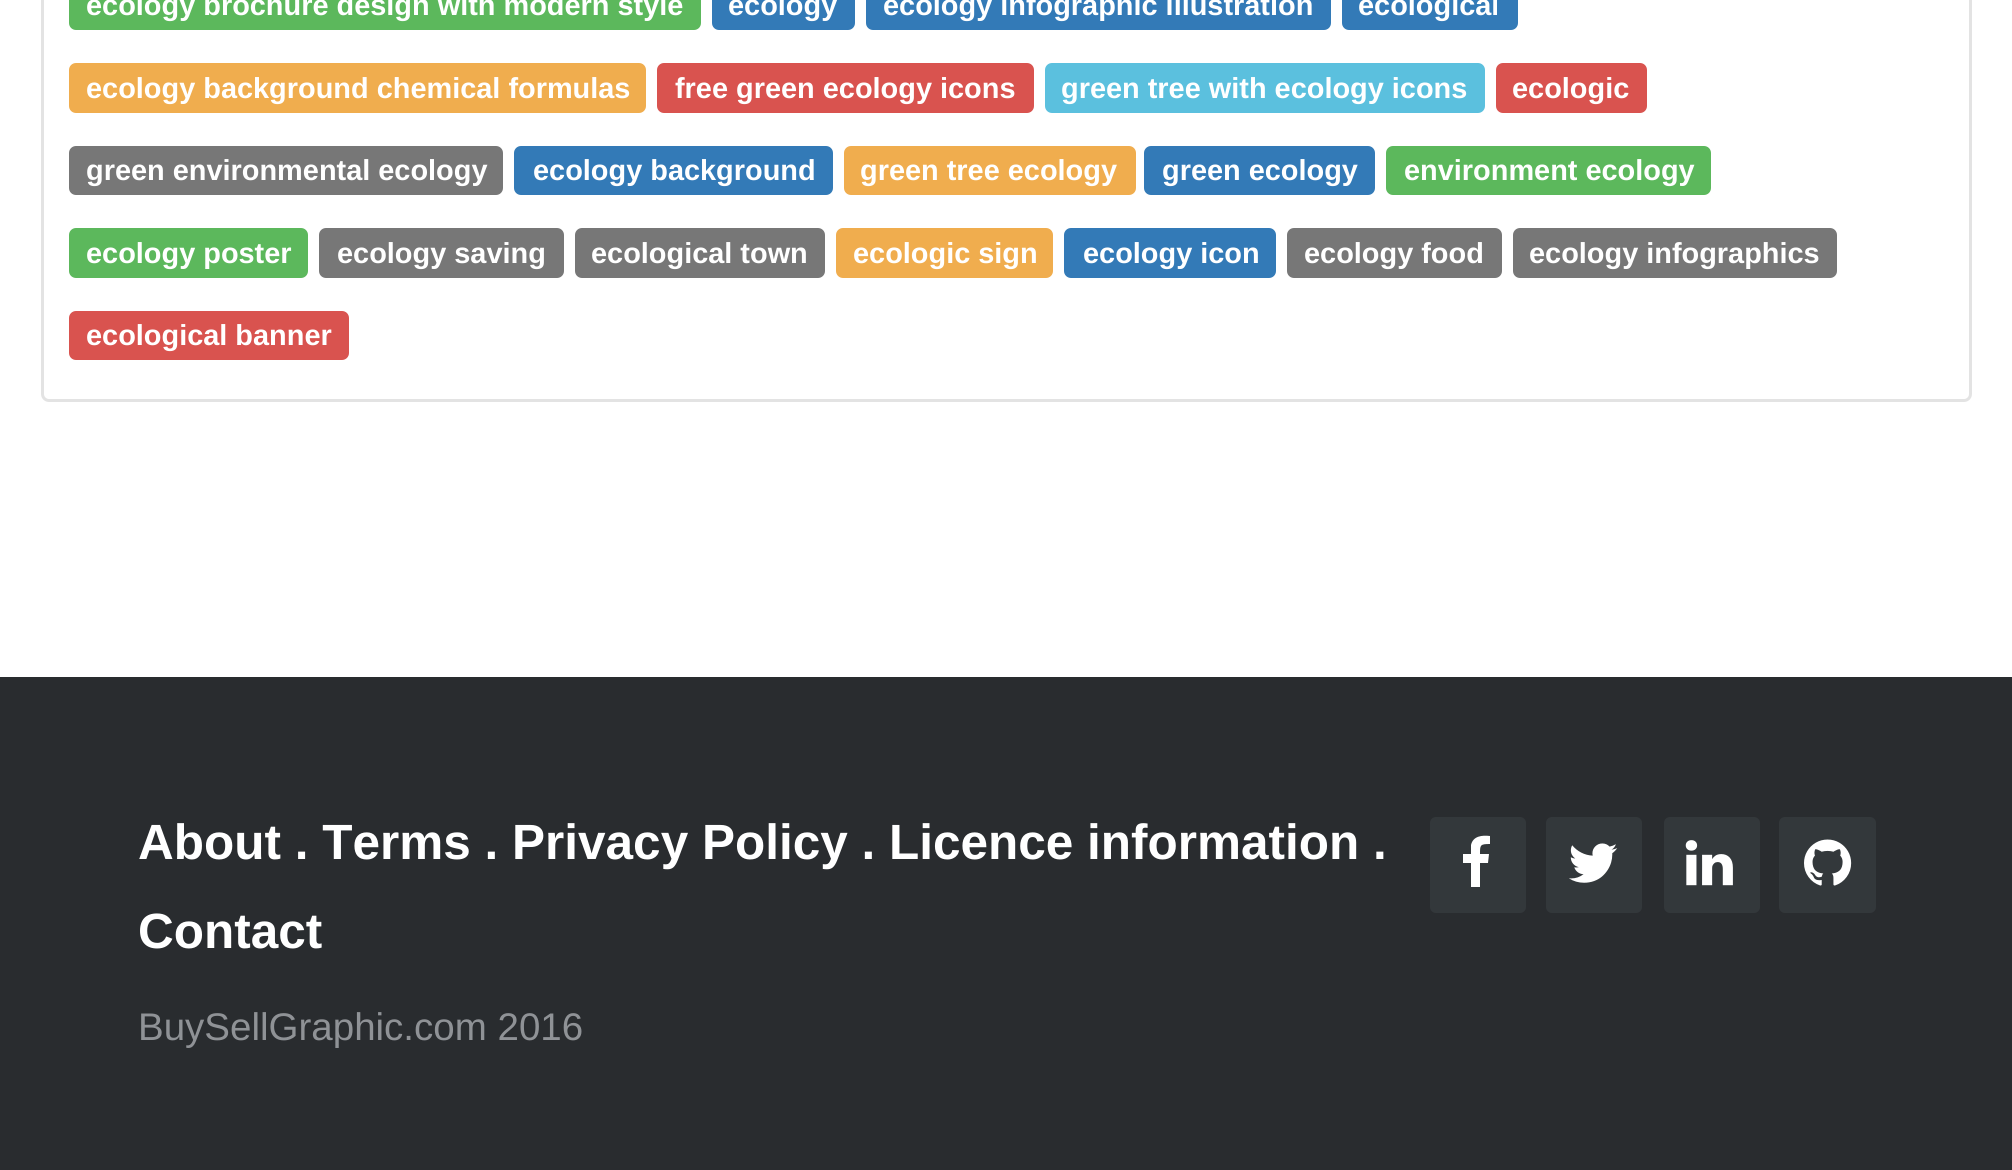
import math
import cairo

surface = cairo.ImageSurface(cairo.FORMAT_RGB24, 2012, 1170)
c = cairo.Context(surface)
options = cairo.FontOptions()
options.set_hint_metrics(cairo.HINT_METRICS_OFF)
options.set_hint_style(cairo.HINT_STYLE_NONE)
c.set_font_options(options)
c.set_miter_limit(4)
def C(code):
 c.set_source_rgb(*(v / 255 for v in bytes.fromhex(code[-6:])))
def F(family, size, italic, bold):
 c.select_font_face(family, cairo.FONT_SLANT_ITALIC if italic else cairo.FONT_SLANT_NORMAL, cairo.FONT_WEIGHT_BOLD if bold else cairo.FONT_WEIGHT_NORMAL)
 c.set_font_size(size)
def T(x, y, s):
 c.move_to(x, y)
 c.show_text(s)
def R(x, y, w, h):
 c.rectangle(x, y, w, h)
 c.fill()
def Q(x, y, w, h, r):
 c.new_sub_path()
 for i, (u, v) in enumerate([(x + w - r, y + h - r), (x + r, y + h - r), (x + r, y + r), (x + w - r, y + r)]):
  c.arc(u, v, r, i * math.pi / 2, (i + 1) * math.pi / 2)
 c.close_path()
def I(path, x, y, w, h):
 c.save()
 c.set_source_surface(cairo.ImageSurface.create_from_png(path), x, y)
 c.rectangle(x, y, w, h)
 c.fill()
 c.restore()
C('ffffff')
c.paint()
Q(42.5,-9.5,1928,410,6.5)
C('e3e3e3')
c.set_line_width(3)
c.stroke()
C('5cb85c')
Q(69,-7,632,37,7)
c.fill()
F('Liberation Sans',28.9,0,1)
C('ffffff')
T(86,15,'ecology brochure design with modern style')
C('337ab7')
Q(712,-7,143,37,7)
c.fill()
C('ffffff')
T(728,15,'ecology')
C('337ab7')
Q(866,-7,465,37,7)
c.fill()
C('ffffff')
T(883,15,'ecology infographic illustration')
C('337ab7')
Q(1342,-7,176,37,7)
c.fill()
C('ffffff')
T(1358,15,'ecological')
C('f0ad4e')
Q(69,63,577,50,7)
c.fill()
C('ffffff')
T(86,98,'ecology background chemical formulas')
C('d9534f')
Q(657,63,377,50,7)
c.fill()
C('ffffff')
T(675,98,'free green ecology icons')
C('5bc0de')
Q(1045,63,440,50,7)
c.fill()
C('ffffff')
T(1061,98,'green tree with ecology icons')
C('d9534f')
Q(1496,63,151,50,7)
c.fill()
C('ffffff')
T(1512,98,'ecologic')
C('777777')
Q(69,146,434,49,7)
c.fill()
C('ffffff')
T(86,180,'green environmental ecology')
C('337ab7')
Q(514,146,319,49,7)
c.fill()
C('ffffff')
T(533,180,'ecology background')
C('f0ad4e')
Q(844,146,292,49,7)
c.fill()
C('ffffff')
T(860,180,'green tree ecology')
C('337ab7')
Q(1144,146,231,49,7)
c.fill()
C('ffffff')
T(1162,180,'green ecology')
C('5cb85c')
Q(1386,146,325,49,7)
c.fill()
C('ffffff')
T(1404,180,'environment ecology')
C('5cb85c')
Q(69,228,239,50,7)
c.fill()
C('ffffff')
T(86,263,'ecology poster')
C('777777')
Q(319,228,245,50,7)
c.fill()
C('ffffff')
T(337,263,'ecology saving')
C('777777')
Q(575,228,250,50,7)
c.fill()
C('ffffff')
T(591,263,'ecological town')
C('f0ad4e')
Q(836,228,217,50,7)
c.fill()
C('ffffff')
T(853,263,'ecologic sign')
C('337ab7')
Q(1064,228,212,50,7)
c.fill()
C('ffffff')
T(1083,263,'ecology icon')
C('777777')
Q(1287,228,215,50,7)
c.fill()
C('ffffff')
T(1304,263,'ecology food')
C('777777')
Q(1513,228,324,50,7)
c.fill()
C('ffffff')
T(1529,263,'ecology infographics')
C('d9534f')
Q(69,311,280,49,7)
c.fill()
C('ffffff')
T(86,345,'ecological banner')
C('292c2f')
R(0,677,2012,493)
F('Liberation Sans',49.5,0,1)
C('ffffff')
T(138,859,'About . Terms . Privacy Policy . Licence information .')
T(138,948,'Contact')
F('Liberation Sans',38.5,0,0)
C('8f9296')
T(138,1040,'BuySellGraphic.com 2016')
C('33383b')
Q(1430,817,96,96,6)
c.fill()
C('ffffff')
c.new_path()
c.move_to(1490,836)
c.line_to(1490,844)
c.curve_to(1480,844,1480,845,1480,854)
c.line_to(1489,854)
c.line_to(1488,863)
c.line_to(1480,863)
c.line_to(1480,887)
c.line_to(1471,887)
c.line_to(1471,863)
c.line_to(1463,863)
c.line_to(1463,854)
c.line_to(1471,854)
c.line_to(1471,845)
c.curve_to(1473,836,1482,835,1490,836)
c.close_path()
c.fill()
C('33383b')
Q(1546,817,96,96,6)
c.fill()
I('1.png',1569,843,49,40)
Q(1664,817,96,96,6)
c.fill()
I('2.png',1685,840,48,46)
Q(1779,817,97,96,6)
c.fill()
I('3.png',1804,839,48,47)
surface.write_to_png('o.png')
